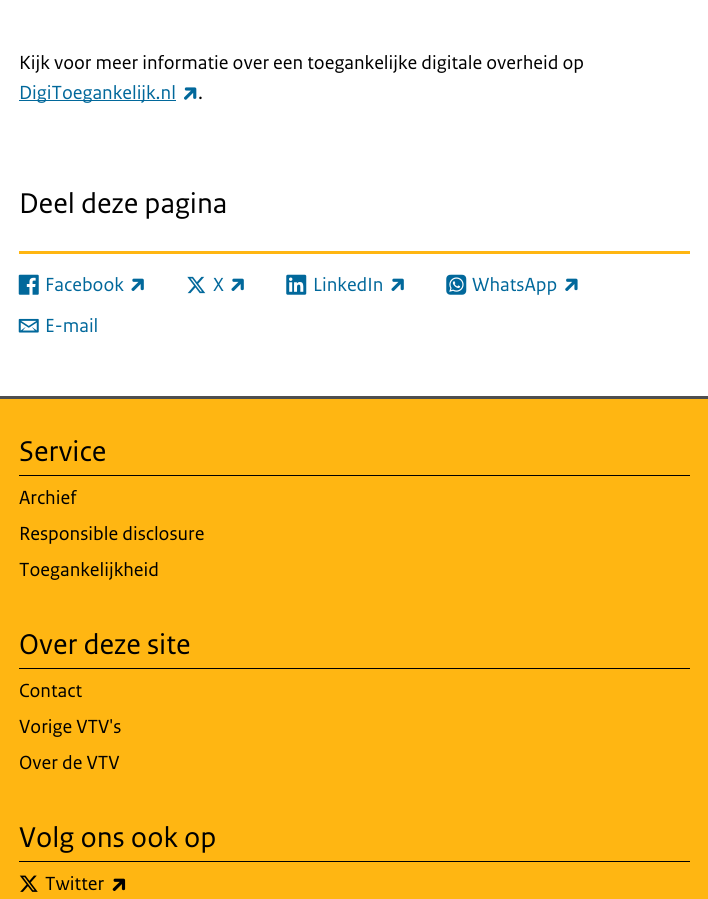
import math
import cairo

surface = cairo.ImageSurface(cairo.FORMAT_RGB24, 708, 899)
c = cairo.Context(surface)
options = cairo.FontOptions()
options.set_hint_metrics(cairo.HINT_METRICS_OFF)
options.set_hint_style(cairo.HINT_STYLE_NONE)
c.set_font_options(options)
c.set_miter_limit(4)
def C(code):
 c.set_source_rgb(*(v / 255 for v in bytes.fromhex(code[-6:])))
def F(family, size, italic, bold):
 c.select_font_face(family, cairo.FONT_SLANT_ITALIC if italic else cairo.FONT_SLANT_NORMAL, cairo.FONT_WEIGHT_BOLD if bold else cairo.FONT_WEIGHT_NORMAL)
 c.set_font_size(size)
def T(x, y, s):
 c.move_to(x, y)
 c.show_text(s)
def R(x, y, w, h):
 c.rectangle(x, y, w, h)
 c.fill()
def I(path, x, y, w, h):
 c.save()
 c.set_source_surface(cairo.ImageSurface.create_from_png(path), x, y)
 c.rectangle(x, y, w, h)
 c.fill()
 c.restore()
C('ffffff')
c.paint()
F('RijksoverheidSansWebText',20,0,0)
C('000000')
T(19,69,'Kijk voor meer informatie over een toegankelijke digitale overheid op')
C('01689b')
R(19,100,157,1)
T(19,99,'DigiToegankelijk.nl')
I('1.png',184,87,13,13)
C('000000')
T(198,99,'.')
F('RijksoverheidSansWebText',30,0,0)
T(19,213,'Deel deze pagina')
C('ffb612')
R(19,251,671,3)
I('2.png',18,274,21,21)
F('RijksoverheidSansWebText',20,0,0)
C('01689b')
T(45,291,'Facebook')
I('3.png',131,278,13,13)
I('4.png',187,276,19,18)
T(213,291,'X')
I('3.png',231,278,13,13)
I('5.png',286,274,21,21)
T(313,291,'LinkedIn')
I('3.png',391,278,13,13)
I('6.png',446,274,21,21)
T(472,291,'WhatsApp')
I('7.png',565,278,13,13)
I('8.png',18,318,21,15)
T(45,332,'E-mail')
C('ffb612')
R(0,399,708,500)
C('4e4e4e')
R(0,396,708,3)
C('000000')
R(19,475,671,1)
F('RijksoverheidSansWebText',30,0,0)
T(19,461,'Service')
F('RijksoverheidSansWebText',20,0,0)
T(19,504,'Archief')
T(19,540,'Responsible disclosure')
T(19,576,'Toegankelijkheid')
R(19,668,671,1)
F('RijksoverheidSansWebText',30,0,0)
T(19,654,'Over deze site')
F('RijksoverheidSansWebText',20,0,0)
T(19,697,'Contact')
T(19,733,'Vorige VTV\'s')
T(19,769,'Over de VTV')
R(19,861,671,1)
F('RijksoverheidSansWebText',30,0,0)
T(19,847,'Volg ons ook op')
I('9.png',19,875,19,17)
F('RijksoverheidSansWebText',20,0,0)
T(45,890,'Twitter')
I('10.png',112,878,14,13)
surface.write_to_png('o.png')
